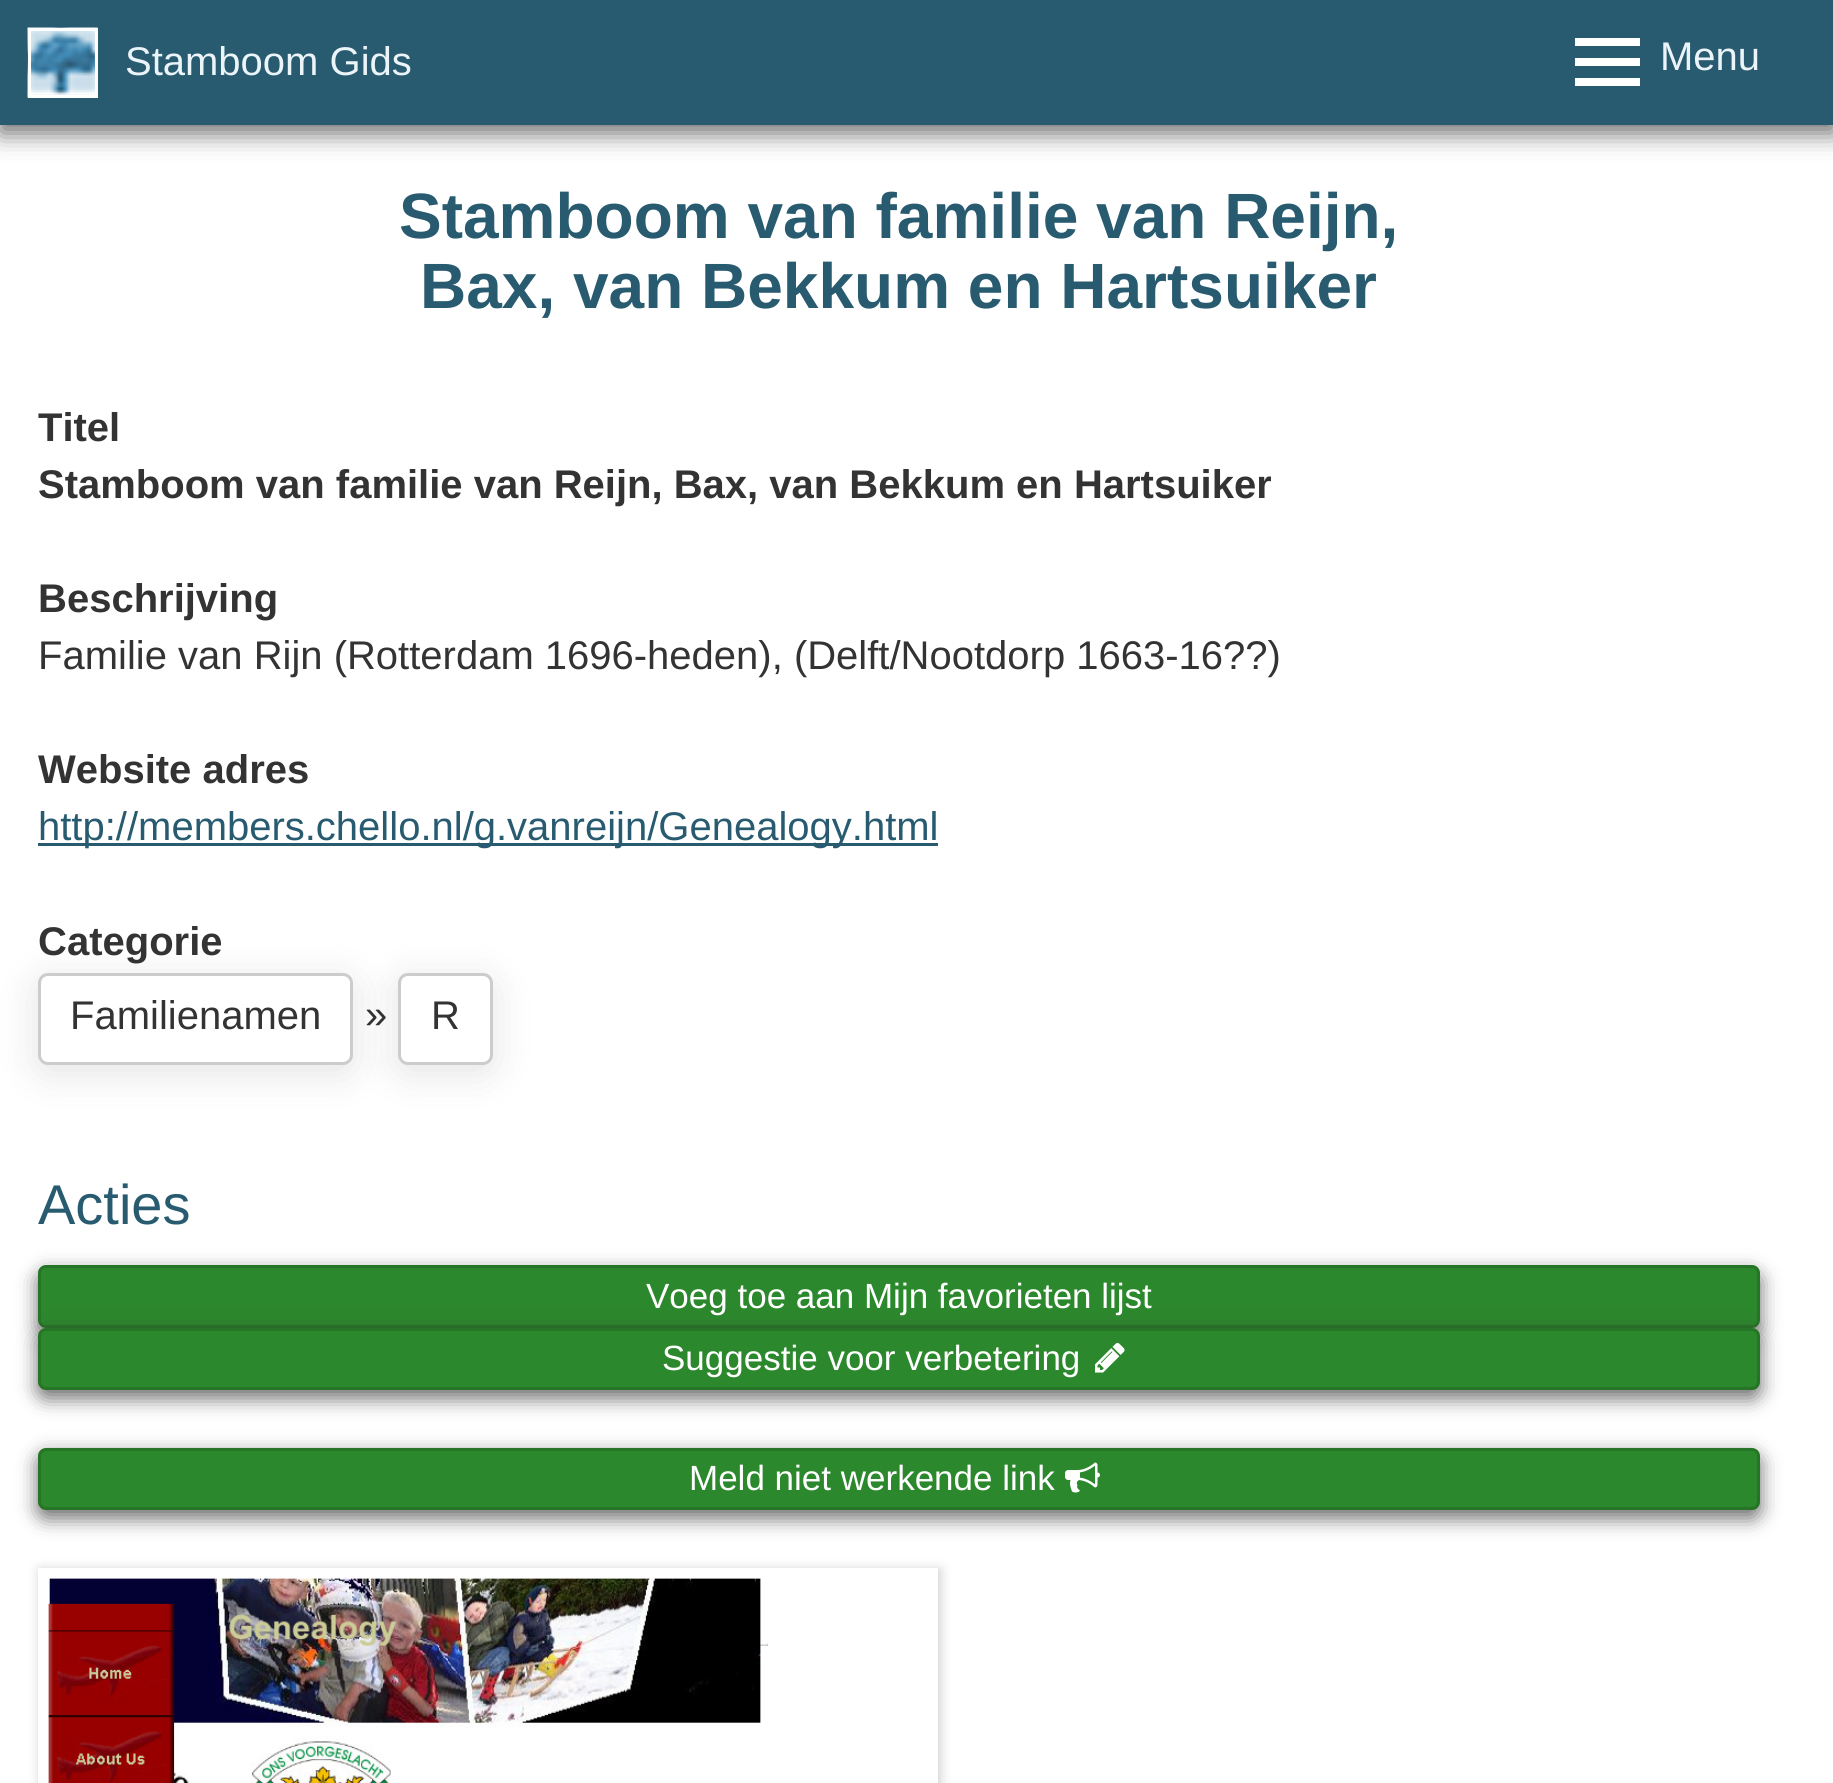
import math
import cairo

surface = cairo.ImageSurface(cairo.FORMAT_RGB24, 1833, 1783)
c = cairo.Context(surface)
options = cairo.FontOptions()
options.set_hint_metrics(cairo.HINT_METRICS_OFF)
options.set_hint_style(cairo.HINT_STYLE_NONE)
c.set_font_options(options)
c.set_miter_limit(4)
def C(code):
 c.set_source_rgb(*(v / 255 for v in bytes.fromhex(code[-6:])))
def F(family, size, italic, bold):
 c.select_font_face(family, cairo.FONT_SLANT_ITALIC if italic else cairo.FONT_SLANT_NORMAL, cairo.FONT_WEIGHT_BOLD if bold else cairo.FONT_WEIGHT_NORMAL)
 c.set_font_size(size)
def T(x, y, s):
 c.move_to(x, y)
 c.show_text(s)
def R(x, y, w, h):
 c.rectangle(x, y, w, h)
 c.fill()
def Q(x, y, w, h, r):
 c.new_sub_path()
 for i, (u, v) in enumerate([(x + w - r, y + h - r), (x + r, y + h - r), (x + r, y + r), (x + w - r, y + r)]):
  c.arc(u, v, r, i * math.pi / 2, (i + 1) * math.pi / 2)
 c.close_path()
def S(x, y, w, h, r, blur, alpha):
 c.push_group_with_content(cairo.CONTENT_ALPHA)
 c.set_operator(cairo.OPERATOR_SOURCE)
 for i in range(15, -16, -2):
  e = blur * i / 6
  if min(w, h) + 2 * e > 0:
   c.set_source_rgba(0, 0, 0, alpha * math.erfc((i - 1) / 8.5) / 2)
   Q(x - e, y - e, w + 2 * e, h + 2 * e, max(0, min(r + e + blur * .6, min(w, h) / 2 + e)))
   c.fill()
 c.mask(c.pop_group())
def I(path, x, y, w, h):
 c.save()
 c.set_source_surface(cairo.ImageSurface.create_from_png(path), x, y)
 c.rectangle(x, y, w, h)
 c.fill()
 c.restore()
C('ffffff')
c.paint()
C('323232')
S(0,8,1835,125,0,12.5,.73)
C('285b70')
R(0,0,1833,125)
I('1.png',27,27,71,71)
c.rectangle(29.5,29.5,67,67)
C('ffffff')
c.set_line_width(3)
c.stroke()
F('Liberation Sans',40,0,0)
C('ebf4f8')
T(125,75,'Stamboom Gids')
C('ffffff')
R(1575,78,65,8)
R(1575,38,65,8)
R(1575,58,65,8)
C('ebf4f8')
T(1660,70,'Menu')
F('Liberation Sans',64,0,1)
C('285b70')
T(399,238,'Stamboom van familie van Reijn,')
T(420,308,'Bax, van Bekkum en Hartsuiker')
F('Liberation Sans',40,0,1)
C('333333')
T(38,441,'Titel')
T(38,498,'Stamboom van familie van Reijn, Bax, van Bekkum en Hartsuiker')
T(38,612,'Beschrijving')
F('Liberation Sans',40,0,0)
T(38,669,'Familie van Rijn (Rotterdam 1696-heden), (Delft/Nootdorp 1663-16??)')
F('Liberation Sans',40,0,1)
T(38,783,'Website adres')
C('285b70')
R(38,843,900,3)
F('Liberation Sans',40,0,0)
T(38,840,'http://members.chello.nl/g.vanreijn/Genealogy.html')
F('Liberation Sans',40,0,1)
C('333333')
T(38,955,'Categorie')
C('000000')
S(35,978,320,97,13,19,.1)
C('ffffff')
Q(39.5,974.5,312,89,8.5)
c.fill_preserve()
C('cccccc')
c.stroke()
F('Liberation Sans',40,0,0)
C('333333')
T(70,1029,'Familienamen')
T(365,1028,'»')
C('000000')
S(395,978,100,97,13,19,.1)
C('ffffff')
Q(399.5,974.5,92,89,8.5)
c.fill_preserve()
C('cccccc')
c.stroke()
C('333333')
T(431,1029,'R')
F('Liberation Sans',56,0,0)
C('285b70')
T(38,1224,'Acties')
C('323232')
S(38,1273,1722,62,8,10,.73)
C('2c882c')
Q(39.5,1266.5,1719,60,6.5)
c.fill_preserve()
C('267526')
c.stroke()
F('Liberation Sans',35,0,0)
C('ffffff')
T(646,1308,'Voeg toe aan Mijn favorieten lijst')
C('323232')
S(38,1335,1722,63,8,10,.73)
C('2c882c')
Q(39.5,1329.5,1719,59,6.5)
c.fill_preserve()
C('267526')
c.stroke()
C('ffffff')
T(662,1370,'Suggestie voor verbetering')
I('2.png',1095,1342,30,31)
C('323232')
S(38,1455,1722,63,8,10,.73)
C('2c882c')
Q(39.5,1449.5,1719,59,6.5)
c.fill_preserve()
C('267526')
c.stroke()
C('ffffff')
T(689,1490,'Meld niet werkende link')
I('3.png',1065,1462,35,31)
C('cccccc')
S(40,1570,900,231,0,6,1)
C('ffffff')
R(38,1568,900,215)
I('4.png',47,1577,722,206)
surface.write_to_png('o.png')
